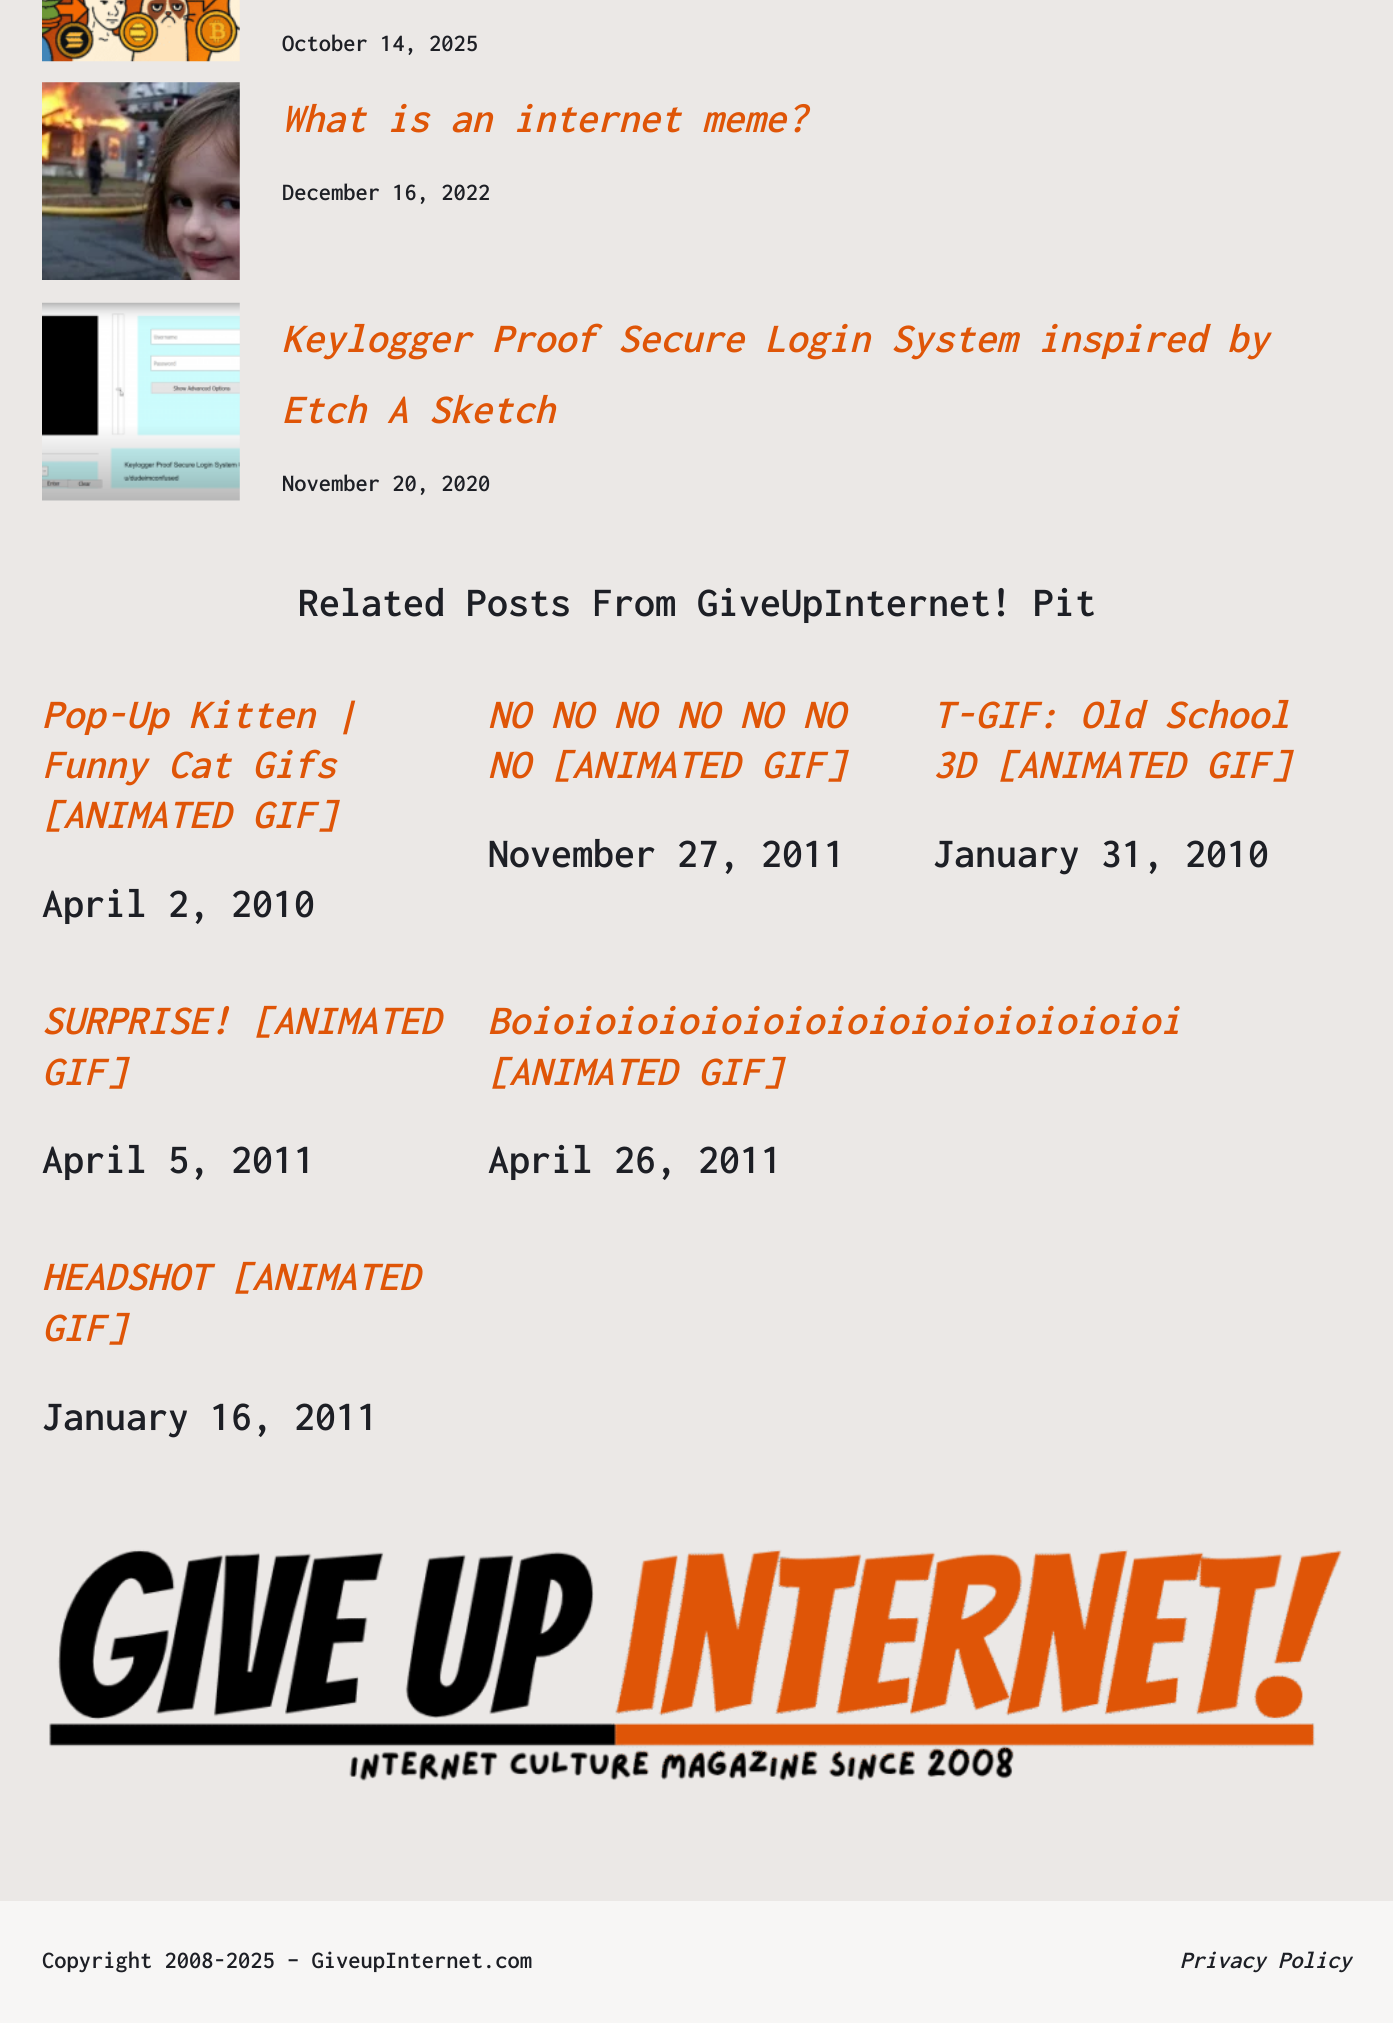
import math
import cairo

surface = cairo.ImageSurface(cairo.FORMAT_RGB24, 1393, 2023)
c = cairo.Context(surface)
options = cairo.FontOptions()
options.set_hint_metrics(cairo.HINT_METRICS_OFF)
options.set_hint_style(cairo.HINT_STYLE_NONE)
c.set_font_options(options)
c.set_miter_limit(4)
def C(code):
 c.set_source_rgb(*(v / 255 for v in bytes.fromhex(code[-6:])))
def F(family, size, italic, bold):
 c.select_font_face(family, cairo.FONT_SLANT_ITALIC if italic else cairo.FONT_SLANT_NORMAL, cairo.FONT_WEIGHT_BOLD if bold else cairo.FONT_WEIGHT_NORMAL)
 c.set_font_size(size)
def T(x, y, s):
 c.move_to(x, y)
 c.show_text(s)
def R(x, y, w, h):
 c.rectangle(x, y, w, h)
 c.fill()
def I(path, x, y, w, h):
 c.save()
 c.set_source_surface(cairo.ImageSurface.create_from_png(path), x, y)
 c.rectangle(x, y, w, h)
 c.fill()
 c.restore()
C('ebe8e6')
c.paint()
I('1.png',42,0,198,62)
F('Inconsolata SemiBold',24.5,0,0)
C('1d1f25')
T(282,51,'October 14, 2025')
I('2.png',42,82,198,198)
F('Inconsolata SemiBold',42,1,0)
C('df5507')
T(282,132,'What is an internet meme?')
F('Inconsolata SemiBold',24.5,0,0)
C('1d1f25')
T(282,200,'December 16, 2022')
I('3.png',42,302,198,199)
F('Inconsolata SemiBold',42,1,0)
C('df5507')
T(282,352,'Keylogger Proof Secure Login System inspired by')
T(282,423,'Etch A Sketch')
F('Inconsolata SemiBold',24.5,0,0)
C('1d1f25')
T(282,491,'November 20, 2020')
F('Inconsolata SemiBold',42,0,0)
T(298,616,'Related Posts From GiveUpInternet! Pit')
F('Inconsolata SemiBold',42,1,0)
C('df5507')
T(42,728,'Pop-Up Kitten |')
T(42,778,'Funny Cat Gifs')
T(42,828,'[ANIMATED GIF]')
F('Inconsolata SemiBold',42,0,0)
C('1d1f25')
T(42,917,'April 2, 2010')
F('Inconsolata SemiBold',42,1,0)
C('df5507')
T(488,728,'NO NO NO NO NO NO')
T(488,778,'NO [ANIMATED GIF]')
F('Inconsolata SemiBold',42,0,0)
C('1d1f25')
T(488,867,'November 27, 2011')
F('Inconsolata SemiBold',42,1,0)
C('df5507')
T(933,728,'T-GIF: Old School')
T(933,778,'3D [ANIMATED GIF]')
F('Inconsolata SemiBold',42,0,0)
C('1d1f25')
T(933,867,'January 31, 2010')
F('Inconsolata SemiBold',42,1,0)
C('df5507')
T(42,1034,'SURPRISE! [ANIMATED')
T(42,1085,'GIF]')
F('Inconsolata SemiBold',42,0,0)
C('1d1f25')
T(42,1173,'April 5, 2011')
F('Inconsolata SemiBold',42,1,0)
C('df5507')
T(488,1034,'Boioioioioioioioioioioioioioioioi')
T(488,1085,'[ANIMATED GIF]')
F('Inconsolata SemiBold',42,0,0)
C('1d1f25')
T(488,1173,'April 26, 2011')
F('Inconsolata SemiBold',42,1,0)
C('df5507')
T(42,1290,'HEADSHOT [ANIMATED')
T(42,1341,'GIF]')
F('Inconsolata SemiBold',42,0,0)
C('1d1f25')
T(42,1430,'January 16, 2011')
I('4.png',49,1549,1293,232)
C('f7f6f5')
R(0,1901,1393,122)
F('Inconsolata SemiBold',24.5,0,0)
C('1d1f25')
T(42,1968,'Copyright 2008-2025 – GiveupInternet.com')
F('Inconsolata SemiBold',24.5,1,0)
T(1180,1968,'Privacy Policy')
surface.write_to_png('o.png')
